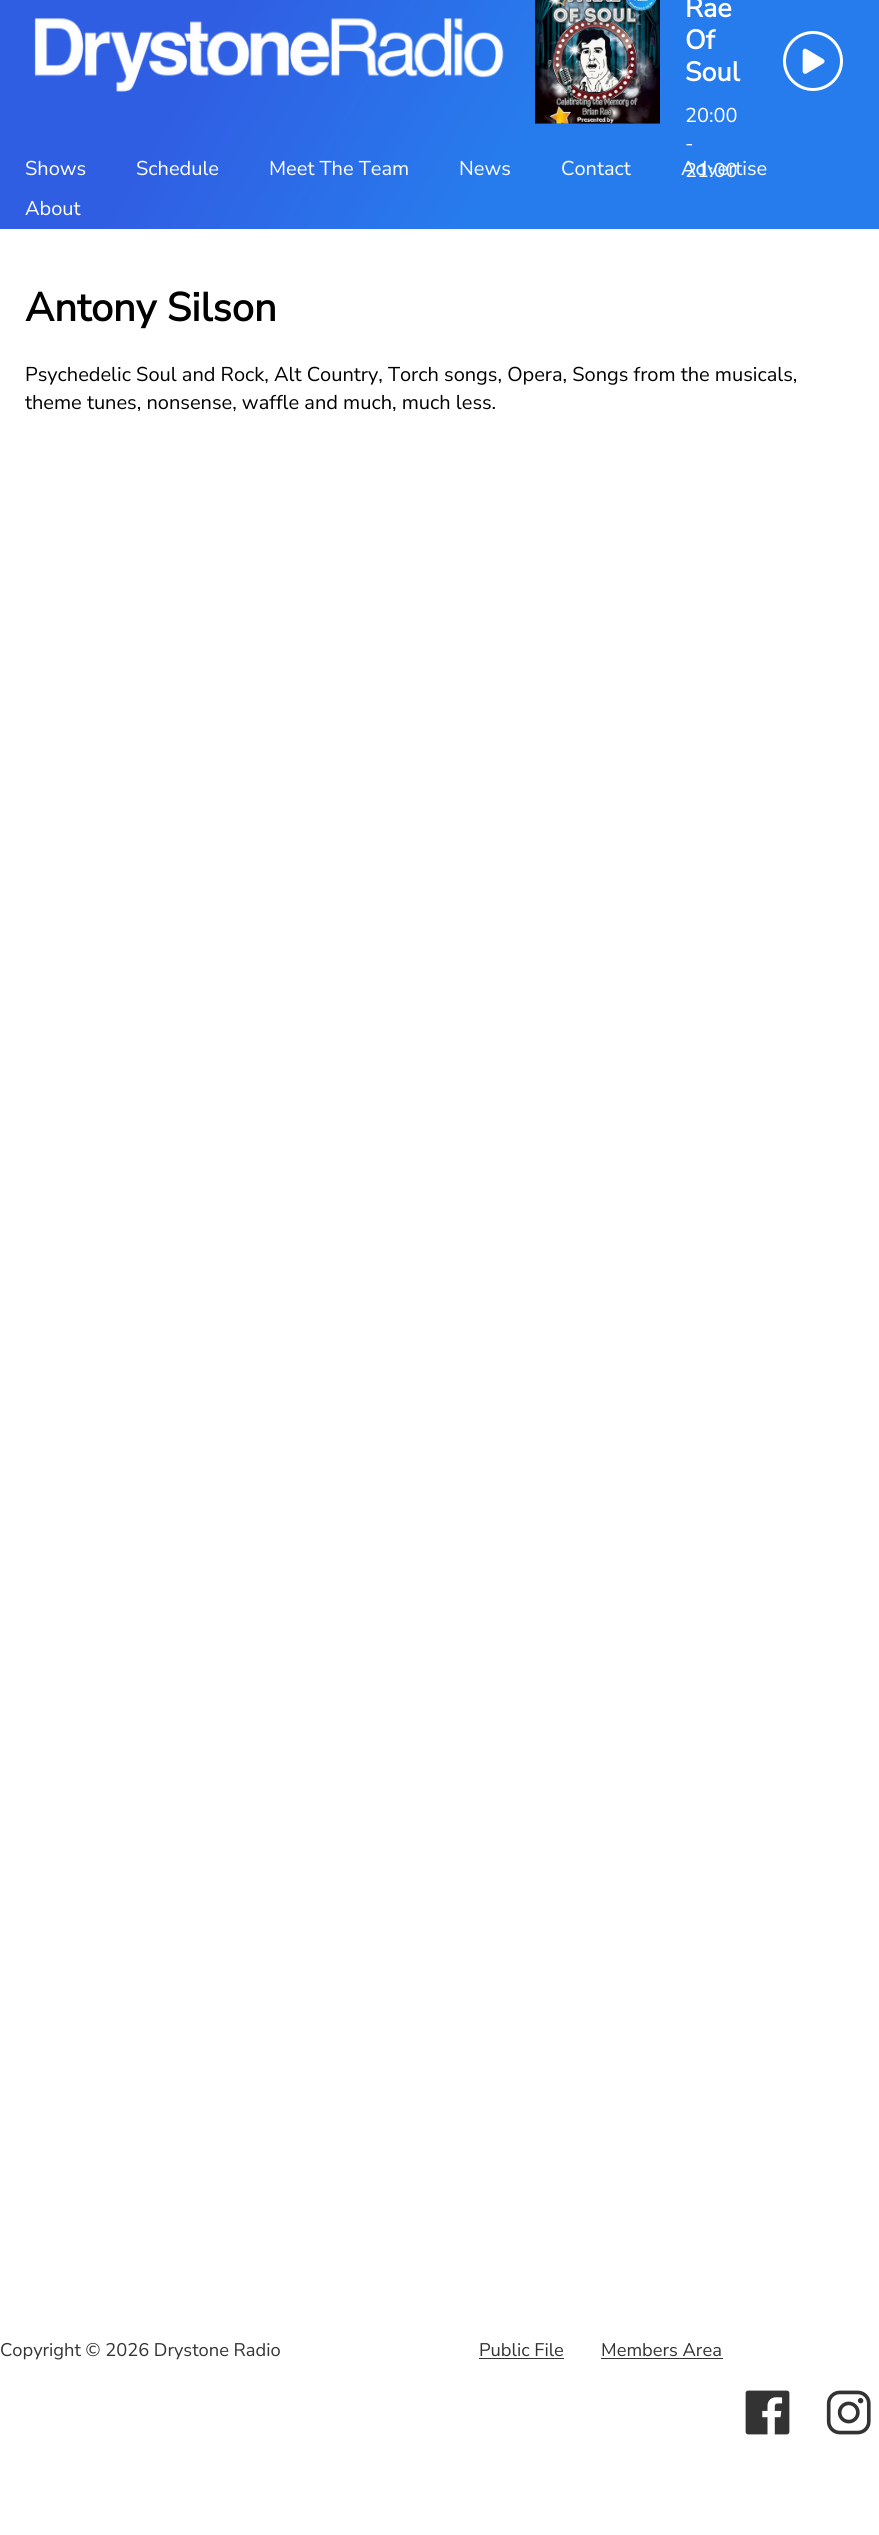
import math
import cairo

surface = cairo.ImageSurface(cairo.FORMAT_RGB24, 879, 2535)
c = cairo.Context(surface)
options = cairo.FontOptions()
options.set_hint_metrics(cairo.HINT_METRICS_OFF)
options.set_hint_style(cairo.HINT_STYLE_NONE)
c.set_font_options(options)
c.set_miter_limit(4)
def C(code):
 c.set_source_rgb(*(v / 255 for v in bytes.fromhex(code[-6:])))
def F(family, size, italic, bold):
 c.select_font_face(family, cairo.FONT_SLANT_ITALIC if italic else cairo.FONT_SLANT_NORMAL, cairo.FONT_WEIGHT_BOLD if bold else cairo.FONT_WEIGHT_NORMAL)
 c.set_font_size(size)
def T(x, y, s):
 c.move_to(x, y)
 c.show_text(s)
def R(x, y, w, h):
 c.rectangle(x, y, w, h)
 c.fill()
def I(path, x, y, w, h):
 c.save()
 c.set_source_surface(cairo.ImageSurface.create_from_png(path), x, y)
 c.rectangle(x, y, w, h)
 c.fill()
 c.restore()
C('ffffff')
c.paint()
gradient = cairo.LinearGradient(52,-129,828,319)
gradient.add_color_stop_rgba(.25,0.188,0.369,0.89,1)
gradient.add_color_stop_rgba(.6,0.153,0.486,0.929,1)
c.set_source(gradient)
R(0,0,879,229)
I('1.png',34,18,470,74)
C('305ee3')
R(535,123,125,1)
I('2.png',535,0,125,124)
F('Nunito Sans',27,0,1)
C('ffffff')
T(685,17,'Rae')
T(685,49,'Of')
T(685,81,'Soul')
F('Nunito Sans ExtraLight',20,0,0)
T(685,122,'20:00')
T(685,150,'-')
T(685,177,'21:00')
c.new_path()
c.arc(813,61,28.5,0,2 * math.pi)
c.set_line_width(3)
c.stroke()
I('3.png',802,48,23,26)
T(25,175,'Shows')
T(136,175,'Schedule')
T(269,175,'Meet The Team')
T(459,175,'News')
T(561,175,'Contact')
T(681,175,'Advertise')
T(25,215,'About')
F('Nunito Sans',40,0,1)
C('000000')
T(25,321,'Antony Silson')
F('Nunito Sans ExtraLight',20,0,0)
T(25,381,'Psychedelic Soul and Rock, Alt Country, Torch songs, Opera, Songs from the musicals,')
T(25,409,'theme tunes, nonsense, waffle and much, much less.')
F('Nunito Sans ExtraLight',18.3,0,0)
C('333333')
T(0,2356,'Copyright © 2026 Drystone Radio')
T(479,2356,'Public File')
R(479,2358,85,1)
T(601,2356,'Members Area')
R(601,2358,122,1)
I('4.png',745,2390,45,45)
I('5.png',826,2390,45,45)
surface.write_to_png('o.png')
